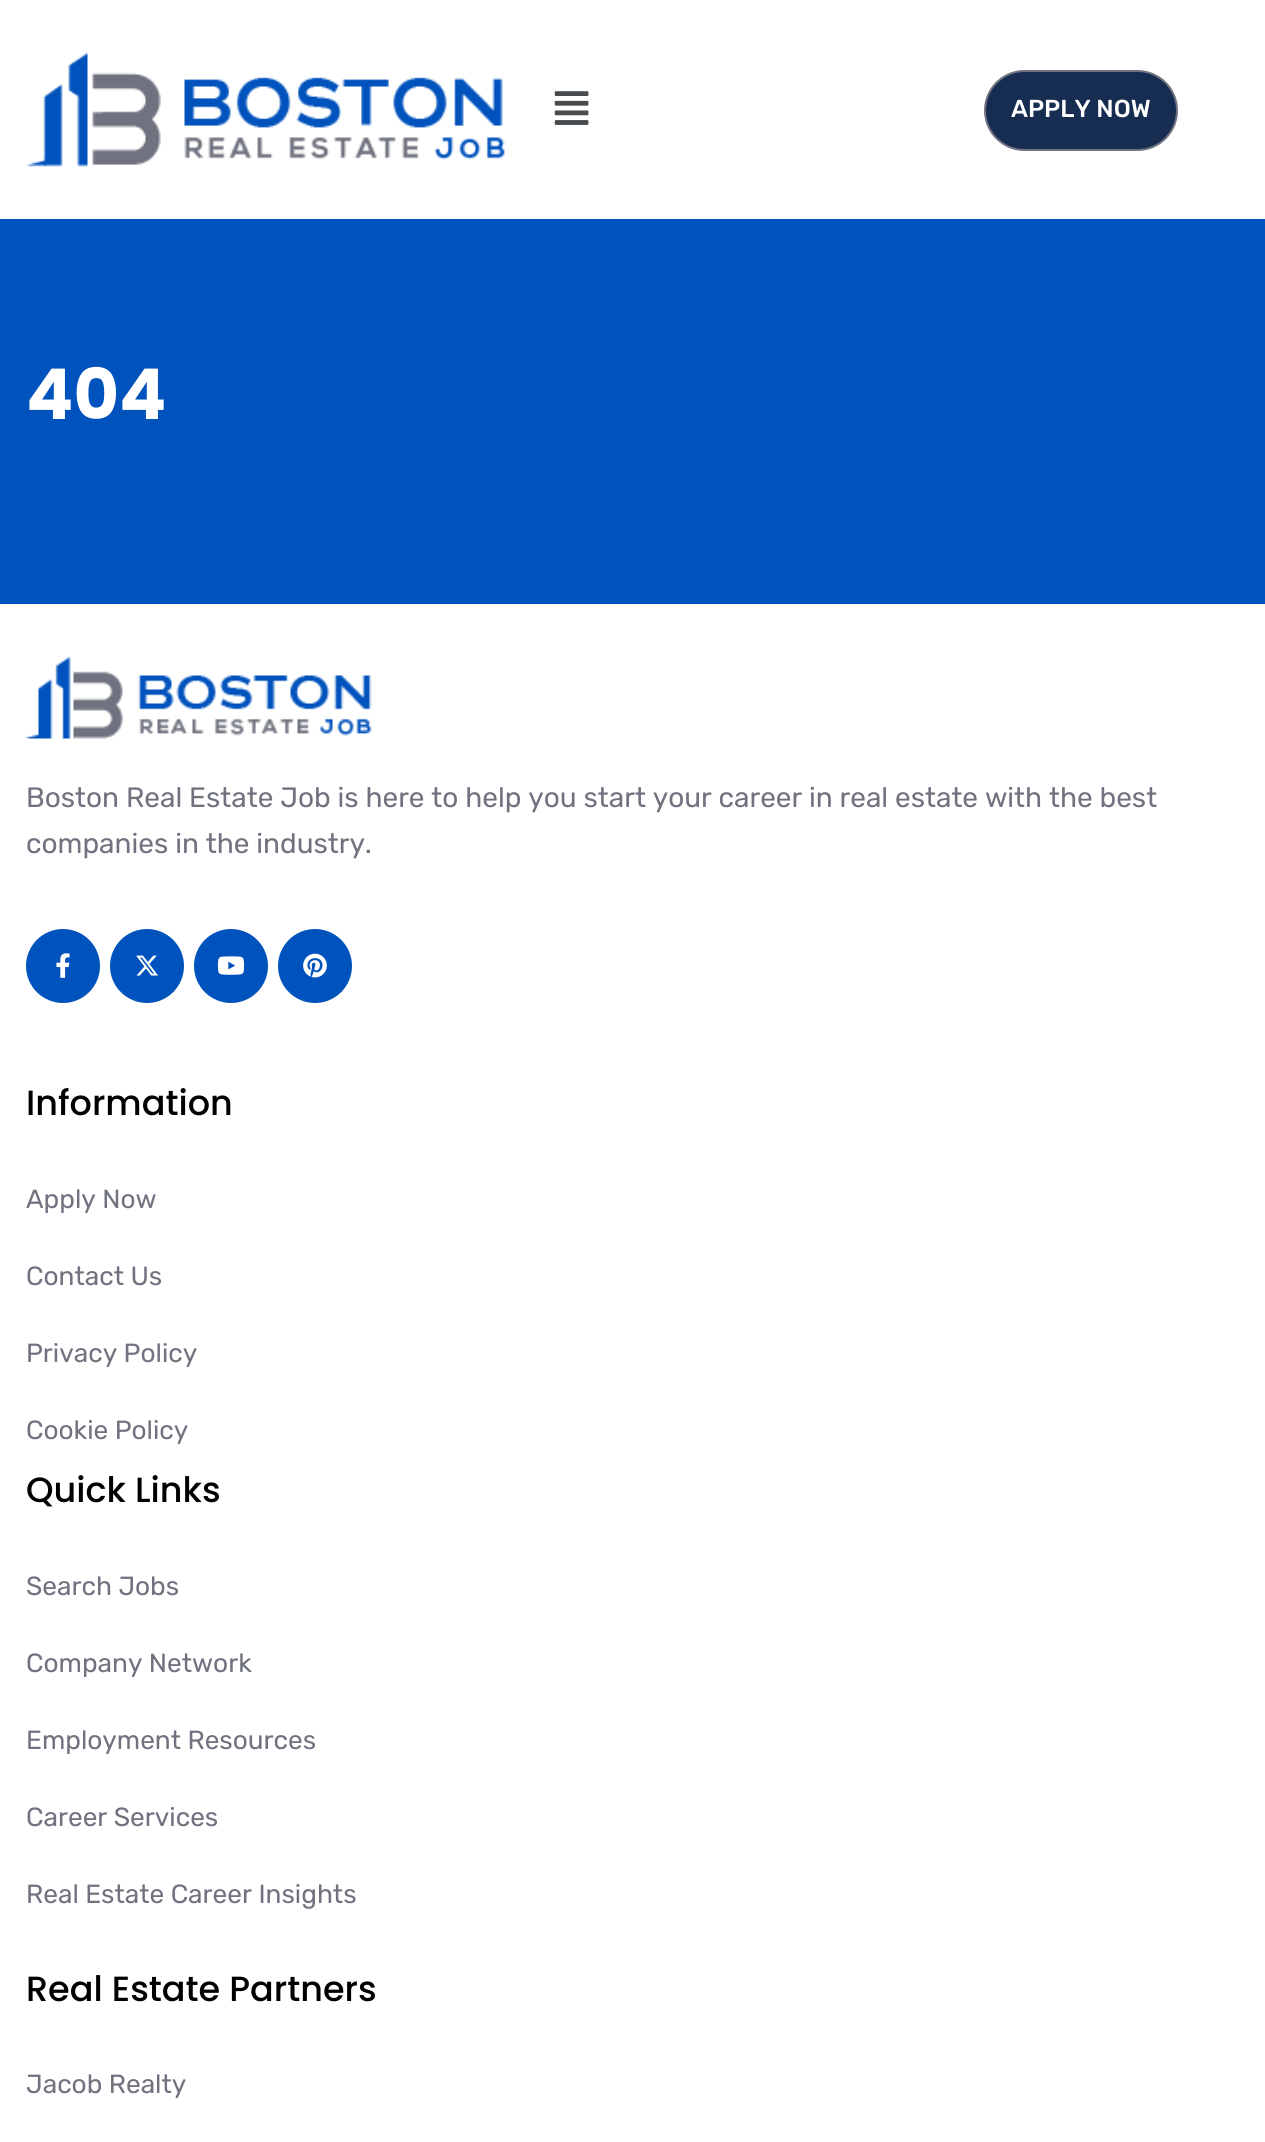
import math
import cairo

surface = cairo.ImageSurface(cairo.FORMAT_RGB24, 1265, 2142)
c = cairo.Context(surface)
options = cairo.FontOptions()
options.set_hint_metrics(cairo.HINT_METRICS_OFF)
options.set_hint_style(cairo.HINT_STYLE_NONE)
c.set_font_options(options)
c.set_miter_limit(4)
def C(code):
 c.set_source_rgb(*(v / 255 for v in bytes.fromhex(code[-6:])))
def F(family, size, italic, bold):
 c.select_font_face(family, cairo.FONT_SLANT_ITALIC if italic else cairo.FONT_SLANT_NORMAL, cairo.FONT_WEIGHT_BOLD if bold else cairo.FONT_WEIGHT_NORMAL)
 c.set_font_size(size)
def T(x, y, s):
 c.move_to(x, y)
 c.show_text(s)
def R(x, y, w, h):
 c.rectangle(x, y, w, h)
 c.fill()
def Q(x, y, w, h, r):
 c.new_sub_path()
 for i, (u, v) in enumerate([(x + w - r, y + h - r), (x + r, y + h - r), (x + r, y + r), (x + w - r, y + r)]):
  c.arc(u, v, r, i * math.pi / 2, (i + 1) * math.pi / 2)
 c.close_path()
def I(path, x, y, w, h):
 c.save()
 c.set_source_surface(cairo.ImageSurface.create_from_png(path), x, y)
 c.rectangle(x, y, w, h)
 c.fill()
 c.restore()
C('ffffff')
c.paint()
I('1.png',26,52,479,115)
I('2.png',554,91,35,34)
C('162d51')
Q(985,71,192,79,39.5)
c.fill_preserve()
C('70737f')
c.stroke()
F('Rubik Medium',24.5,0,0)
C('ffffff')
T(1011,117,'APPLY NOW')
C('0052bd')
R(0,219,1265,385)
F('Poppins',70,0,1)
C('ffffff')
T(26,419,'404')
I('3.png',26,656,346,83)
F('Rubik',28,0,0)
C('70737f')
T(26,807,'Boston Real Estate Job is here to help you start your career in real estate with the best')
T(26,853,'companies in the industry.')
C('0052bd')
c.new_path()
c.arc(63,966,37,0,2 * math.pi)
c.fill()
I('4.png',56,953,14,25)
c.arc(147,966,37,0,2 * math.pi)
c.fill()
I('5.png',136,955,22,21)
c.arc(231,966,37,0,2 * math.pi)
c.fill()
I('6.png',217,956,28,19)
c.arc(315,966,37,0,2 * math.pi)
c.fill()
I('7.png',303,953,24,25)
F('Poppins Medium',35,0,0)
C('000000')
T(26,1115,'Information')
F('Rubik',26.25,0,0)
C('70737f')
T(26,1208,'Apply Now')
T(26,1285,'Contact Us')
T(26,1362,'Privacy Policy')
T(26,1439,'Cookie Policy')
F('Poppins Medium',35,0,0)
C('000000')
T(26,1502,'Quick Links')
F('Rubik',26.25,0,0)
C('70737f')
T(26,1595,'Search Jobs')
T(26,1672,'Company Network')
T(26,1749,'Employment Resources')
T(26,1826,'Career Services')
T(26,1903,'Real Estate Career Insights')
F('Poppins Medium',35,0,0)
C('000000')
T(26,2001,'Real Estate Partners')
F('Rubik',26.25,0,0)
C('70737f')
T(26,2093,'Jacob Realty')
surface.write_to_png('o.png')
